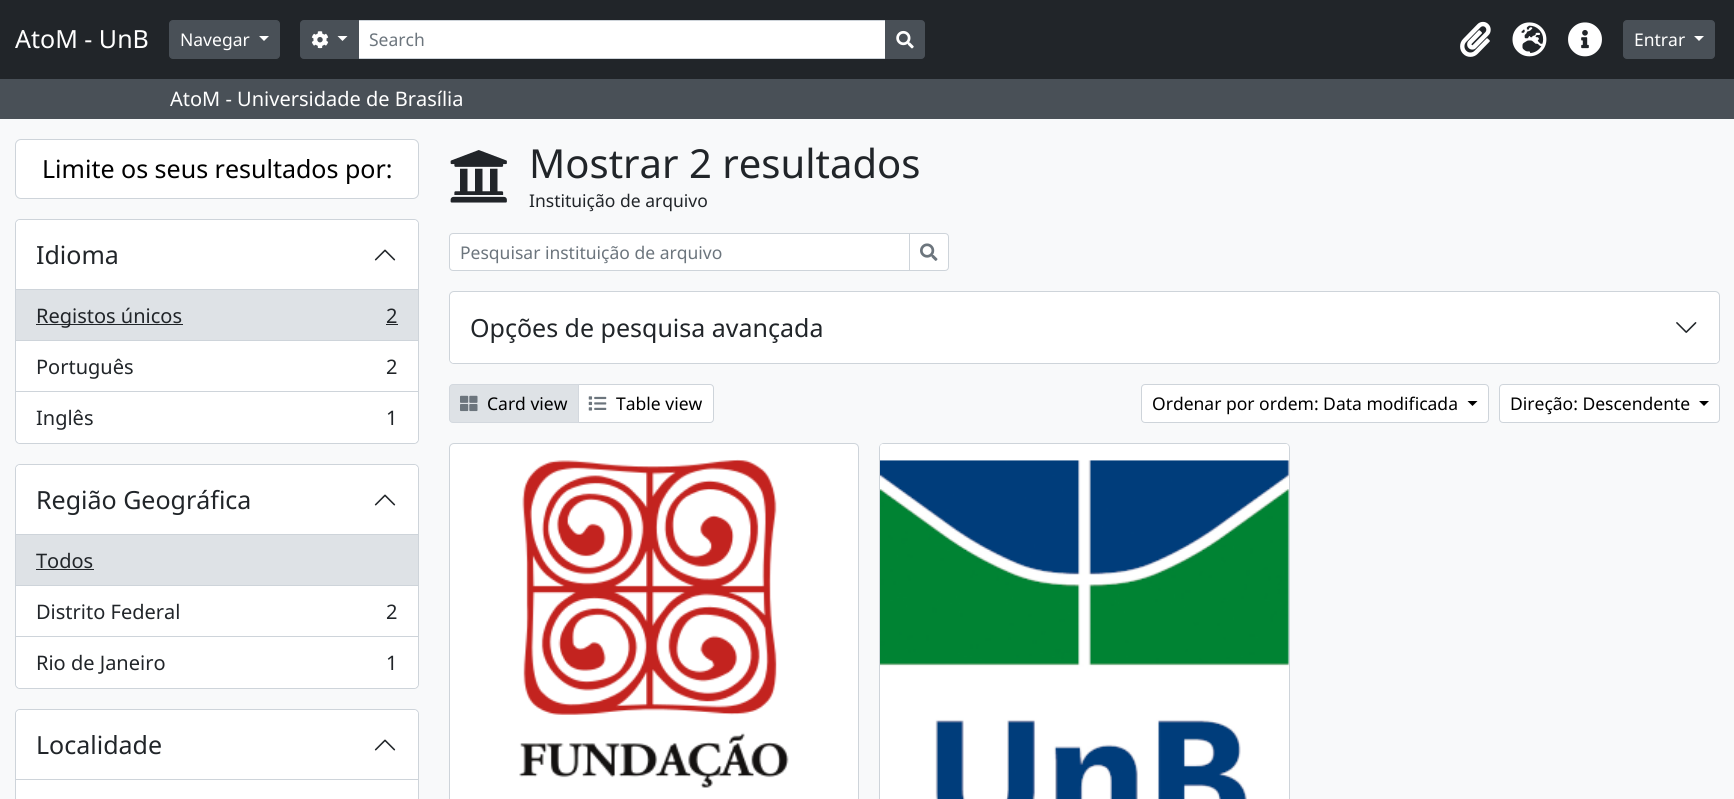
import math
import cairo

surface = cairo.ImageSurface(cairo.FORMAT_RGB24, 1734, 799)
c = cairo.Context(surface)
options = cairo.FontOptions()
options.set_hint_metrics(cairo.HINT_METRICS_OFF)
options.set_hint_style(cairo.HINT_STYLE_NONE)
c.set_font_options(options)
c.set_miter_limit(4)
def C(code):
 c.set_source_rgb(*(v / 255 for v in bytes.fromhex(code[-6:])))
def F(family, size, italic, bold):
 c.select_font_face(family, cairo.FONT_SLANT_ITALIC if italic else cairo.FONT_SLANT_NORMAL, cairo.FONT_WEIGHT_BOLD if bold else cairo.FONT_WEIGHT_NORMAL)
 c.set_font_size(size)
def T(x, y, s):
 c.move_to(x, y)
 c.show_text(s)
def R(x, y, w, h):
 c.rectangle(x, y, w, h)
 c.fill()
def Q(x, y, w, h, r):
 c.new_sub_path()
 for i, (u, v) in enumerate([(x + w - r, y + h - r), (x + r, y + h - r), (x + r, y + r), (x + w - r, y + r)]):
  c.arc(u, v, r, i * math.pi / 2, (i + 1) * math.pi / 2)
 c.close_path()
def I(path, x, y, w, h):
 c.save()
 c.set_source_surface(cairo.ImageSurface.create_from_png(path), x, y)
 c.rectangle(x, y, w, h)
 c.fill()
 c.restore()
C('f8f9fa')
c.paint()
C('212529')
R(0,0,1734,79)
F('Noto Sans',25,0,0)
C('ffffff')
T(15,48,'AtoM - UnB')
C('495057')
Q(169.5,20.5,110,38,3.5)
c.fill_preserve()
c.set_line_width(1)
c.stroke()
F('Noto Sans',17.5,0,0)
C('ffffff')
T(180,46,'Navegar')
c.new_path()
c.move_to(259,36)
c.line_to(269,36)
c.line_to(264,41)
c.close_path()
c.fill()
c.rectangle(358.5,20.5,527,38)
c.fill_preserve()
C('ced4da')
c.stroke()
C('495057')
c.new_path()
c.move_to(304,20.5)
c.line_to(358.5,20.5)
c.line_to(358.5,58.5)
c.line_to(304,58.5)
c.curve_to(302,58.5,300.5,57,300.5,55)
c.line_to(300.5,24)
c.curve_to(300.5,22,302,20.5,304,20.5)
c.close_path()
c.fill_preserve()
c.stroke()
I('1.png',311,31,18,18)
C('ffffff')
c.new_path()
c.move_to(337.5,36)
c.line_to(347.5,36)
c.line_to(342.5,41)
c.close_path()
c.fill()
C('6c757d')
T(369,46,'Search')
C('495057')
c.new_path()
c.move_to(885.5,20.5)
c.line_to(921,20.5)
c.curve_to(923,20.5,924.5,22,924.5,24)
c.line_to(924.5,55)
c.curve_to(924.5,57,923,58.5,921,58.5)
c.line_to(885.5,58.5)
c.close_path()
c.fill_preserve()
c.stroke()
I('2.png',896,30,18,19)
I('3.png',1460,21,31,36)
I('4.png',1512,22,35,35)
I('5.png',1568,22,34,35)
Q(1623.5,20.5,91,38,3.5)
c.fill_preserve()
c.stroke()
C('ffffff')
T(1634,46,'Entrar')
c.new_path()
c.move_to(1694,36)
c.line_to(1704,36)
c.line_to(1699,41)
c.close_path()
c.fill()
C('495057')
R(0,79,1734,40)
F('Noto Sans',20,0,0)
C('ffffff')
T(170,106,'AtoM - Universidade de Brasília')
Q(15.5,139.5,403,59,5.5)
c.fill_preserve()
C('ced4da')
c.stroke()
F('Noto Sans',25,0,0)
C('000000')
T(42,178,'Limite os seus resultados por:')
C('ffffff')
Q(15.5,219.5,403,224,4.5)
c.fill_preserve()
C('ced4da')
c.stroke()
C('ffffff')
c.new_path()
c.move_to(20,220)
c.line_to(414,220)
c.curve_to(416,220,418,222,418,224)
c.line_to(418,290)
c.line_to(16,290)
c.line_to(16,224)
c.curve_to(16,222,18,220,20,220)
c.close_path()
c.fill()
C('ced4da')
R(16,289,402,1)
C('212529')
T(36,264,'Idioma')
I('6.png',374,249,22,12)
C('dee2e6')
R(16,290,402,50)
C('ced4da')
R(16,340,402,1)
C('212529')
R(36,324,147,1)
F('Noto Sans',20,0,0)
T(36,323,'Registos únicos')
T(386,323,'2')
R(386,324,12,1)
C('ced4da')
R(16,391,402,1)
C('212529')
T(36,374,'Português')
T(386,374,'2')
C('ffffff')
c.new_path()
c.move_to(16,393)
c.line_to(418,393)
c.line_to(418,438)
c.curve_to(418,441,416,443,413,443)
c.line_to(21,443)
c.curve_to(18,443,16,441,16,438)
c.close_path()
c.fill()
C('212529')
T(36,425,'Inglês')
T(386,425,'1')
C('ffffff')
Q(15.5,464.5,403,224,4.5)
c.fill_preserve()
C('ced4da')
c.stroke()
C('ffffff')
c.new_path()
c.move_to(20,465)
c.line_to(414,465)
c.curve_to(416,465,418,467,418,469)
c.line_to(418,535)
c.line_to(16,535)
c.line_to(16,469)
c.curve_to(16,467,18,465,20,465)
c.close_path()
c.fill()
C('ced4da')
R(16,534,402,1)
F('Noto Sans',25,0,0)
C('212529')
T(36,509,'Região Geográfica')
I('6.png',374,494,22,12)
C('dee2e6')
R(16,535,402,50)
C('ced4da')
R(16,585,402,1)
F('Noto Sans',20,0,0)
C('212529')
T(36,568,'Todos')
R(36,569,58,1)
C('ced4da')
R(16,636,402,1)
C('212529')
T(36,619,'Distrito Federal')
T(386,619,'2')
C('ffffff')
c.new_path()
c.move_to(16,638)
c.line_to(418,638)
c.line_to(418,683)
c.curve_to(418,686,416,688,413,688)
c.line_to(21,688)
c.curve_to(18,688,16,686,16,683)
c.close_path()
c.fill()
C('212529')
T(36,670,'Rio de Janeiro')
T(386,670,'1')
C('ffffff')
Q(15.5,709.5,403,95,4.5)
c.fill_preserve()
C('ced4da')
c.stroke()
C('ffffff')
c.new_path()
c.move_to(20,710)
c.line_to(414,710)
c.curve_to(416,710,418,712,418,714)
c.line_to(418,780)
c.line_to(16,780)
c.line_to(16,714)
c.curve_to(16,712,18,710,20,710)
c.close_path()
c.fill()
C('ced4da')
R(16,779,402,1)
F('Noto Sans',25,0,0)
C('212529')
T(36,754,'Localidade')
I('6.png',374,739,22,12)
I('7.png',450,150,57,53)
F('Noto Sans',40,0,0)
T(529,178,'Mostrar 2 resultados')
F('Noto Sans',17.5,0,0)
T(529,207,'Instituição de arquivo')
C('ffffff')
c.new_path()
c.move_to(452.5,234)
c.line_to(909,234)
c.line_to(909,270)
c.line_to(452.5,270)
c.curve_to(451,270,450,269,450,267.5)
c.line_to(450,236.5)
c.curve_to(450,235,451,234,452.5,234)
c.close_path()
c.fill()
c.new_path()
c.move_to(453,233.5)
c.line_to(909.5,233.5)
c.line_to(909.5,270.5)
c.line_to(453,270.5)
c.curve_to(451,270.5,449.5,269,449.5,267)
c.line_to(449.5,237)
c.curve_to(449.5,235,451,233.5,453,233.5)
c.close_path()
C('ced4da')
c.stroke()
C('6c757d')
T(460,259,'Pesquisar instituição de arquivo')
C('ffffff')
c.new_path()
c.move_to(909.5,233.5)
c.line_to(945,233.5)
c.curve_to(947,233.5,948.5,235,948.5,237)
c.line_to(948.5,267)
c.curve_to(948.5,269,947,270.5,945,270.5)
c.line_to(909.5,270.5)
c.close_path()
c.fill_preserve()
C('ced4da')
c.stroke()
I('8.png',920,243,18,18)
C('ffffff')
Q(449.5,291.5,1270,72,4.5)
c.fill_preserve()
C('ced4da')
c.stroke()
C('ffffff')
Q(450,293,1269,70,4)
c.fill()
F('Noto Sans',25,0,0)
C('212529')
T(470,337,'Opções de pesquisa avançada')
I('9.png',1676,322,21,11)
C('ffffff')
c.new_path()
c.move_to(578.5,384.5)
c.line_to(710,384.5)
c.curve_to(712,384.5,713.5,386,713.5,388)
c.line_to(713.5,419)
c.curve_to(713.5,421,712,422.5,710,422.5)
c.line_to(578.5,422.5)
c.close_path()
c.fill_preserve()
C('ced4da')
c.stroke()
C('dee2e6')
c.new_path()
c.move_to(453,384.5)
c.line_to(578.5,384.5)
c.line_to(578.5,422.5)
c.line_to(453,422.5)
c.curve_to(451,422.5,449.5,421,449.5,419)
c.line_to(449.5,388)
c.curve_to(449.5,386,451,384.5,453,384.5)
c.close_path()
c.fill_preserve()
C('d3d8de')
c.stroke()
I('10.png',460,395,18,17)
F('Noto Sans',17.5,0,0)
C('000000')
T(487,410,'Card view')
I('11.png',588,396,19,15)
T(616,410,'Table view')
C('ffffff')
Q(1141.5,384.5,347,38,3.5)
c.fill_preserve()
C('ced4da')
c.stroke()
C('000000')
T(1152,410,'Ordenar por ordem: Data modificada')
c.new_path()
c.move_to(1467.5,401)
c.line_to(1477.5,401)
c.line_to(1472.5,406)
c.close_path()
c.fill()
C('ffffff')
Q(1499.5,384.5,220,38,3.5)
c.fill_preserve()
C('ced4da')
c.stroke()
C('000000')
T(1510,410,'Direção: Descendente')
c.new_path()
c.move_to(1699,401)
c.line_to(1709,401)
c.line_to(1704,406)
c.close_path()
c.fill()
C('ffffff')
Q(449.5,443.5,409,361,4.5)
c.fill_preserve()
C('ced4da')
c.stroke()
I('12.png',519,459,270,329)
C('ffffff')
Q(879.5,443.5,410,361,4.5)
c.fill_preserve()
C('ced4da')
c.stroke()
I('13.png',880,444,409,355)
surface.write_to_png('o.png')
